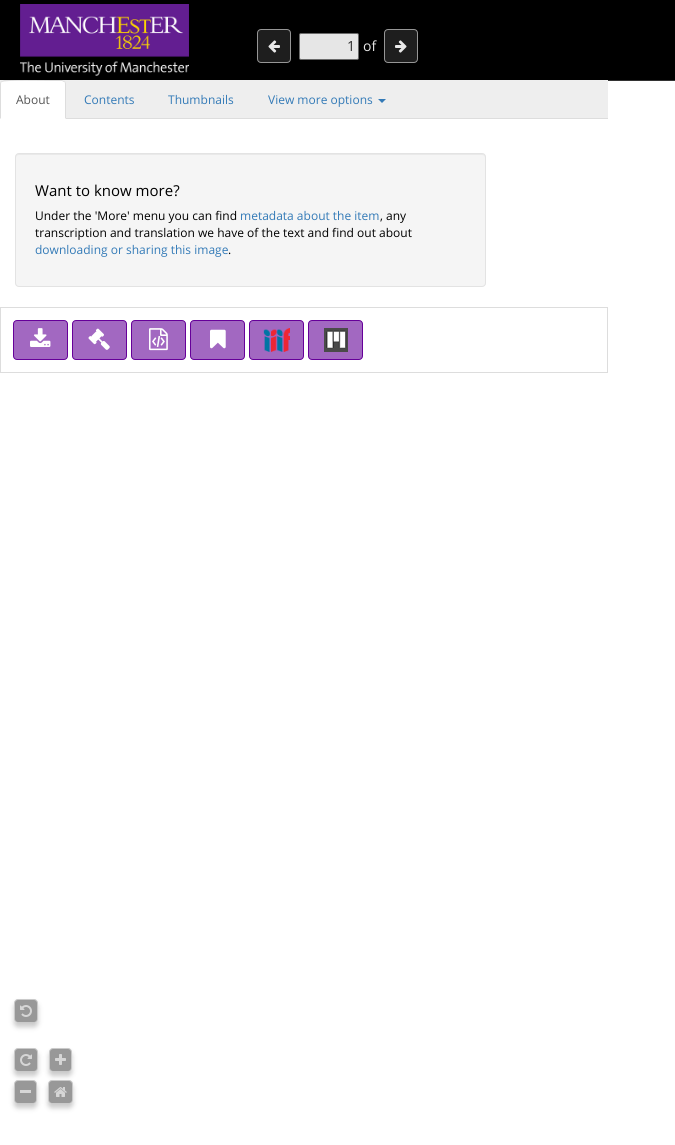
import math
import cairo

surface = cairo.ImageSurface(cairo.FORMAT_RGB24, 675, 1145)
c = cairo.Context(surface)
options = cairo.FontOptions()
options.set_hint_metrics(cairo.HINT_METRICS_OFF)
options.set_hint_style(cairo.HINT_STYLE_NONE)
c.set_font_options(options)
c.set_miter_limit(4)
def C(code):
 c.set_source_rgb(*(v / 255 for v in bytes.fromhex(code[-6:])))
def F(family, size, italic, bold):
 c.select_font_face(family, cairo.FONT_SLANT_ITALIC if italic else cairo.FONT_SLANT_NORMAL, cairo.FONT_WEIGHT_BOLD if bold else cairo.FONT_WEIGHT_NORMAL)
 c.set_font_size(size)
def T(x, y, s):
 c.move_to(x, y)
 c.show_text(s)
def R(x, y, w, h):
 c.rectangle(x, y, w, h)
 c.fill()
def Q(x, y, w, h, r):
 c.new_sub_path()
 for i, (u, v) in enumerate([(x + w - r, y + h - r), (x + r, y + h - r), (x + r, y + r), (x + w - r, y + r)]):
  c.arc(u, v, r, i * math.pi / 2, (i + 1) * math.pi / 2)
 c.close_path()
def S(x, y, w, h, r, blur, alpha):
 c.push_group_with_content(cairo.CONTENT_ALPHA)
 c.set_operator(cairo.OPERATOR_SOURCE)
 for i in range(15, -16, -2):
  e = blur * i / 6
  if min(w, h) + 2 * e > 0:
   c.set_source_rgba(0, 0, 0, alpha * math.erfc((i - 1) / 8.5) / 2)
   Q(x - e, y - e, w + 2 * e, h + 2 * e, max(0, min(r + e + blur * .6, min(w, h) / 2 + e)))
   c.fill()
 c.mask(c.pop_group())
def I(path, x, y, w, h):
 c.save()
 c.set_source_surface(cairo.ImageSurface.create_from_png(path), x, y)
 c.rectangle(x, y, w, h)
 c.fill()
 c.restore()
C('ffffff')
c.paint()
C('000000')
R(0,0,675,80)
C('333333')
R(608,80,67,1)
I('1.png',20,4,169,72)
C('1e1e1e')
Q(257.5,29.5,33,33,3.5)
c.fill_preserve()
C('969696')
c.set_line_width(1)
c.stroke()
I('2.png',268,40,12,13)
C('e6e6e6')
Q(299.5,33.5,59,26,1.5)
c.fill_preserve()
C('6a6a6a')
c.stroke()
F('Open Sans',14,0,0)
C('2e2e2e')
T(347,51,'1')
C('e6e6e6')
T(363,51,'of')
C('1e1e1e')
Q(384.5,29.5,33,33,3.5)
c.fill_preserve()
C('969696')
c.stroke()
I('3.png',395,40,12,13)
C('eeeeee')
R(0,80,608,38)
C('dddddd')
R(66,118,542,1)
C('ffffff')
c.new_path()
c.move_to(4,80)
c.line_to(62,80)
c.curve_to(64,80,66,82,66,84)
c.line_to(66,119)
c.line_to(0,119)
c.line_to(0,84)
c.curve_to(0,82,2,80,4,80)
c.close_path()
c.fill()
C('dddddd')
c.new_path()
c.move_to(4,80)
c.line_to(1,81)
c.line_to(2,82)
c.curve_to(4,80,47,81,52,81)
c.line_to(62,81)
c.line_to(64,82)
c.line_to(65,81)
c.line_to(62,80)
c.close_path()
c.fill()
c.new_path()
c.move_to(66,119)
c.line_to(66,84)
c.curve_to(66,83,65.5,82,65,81)
c.line_to(64,82)
c.curve_to(65,82,65,83,65,84)
c.line_to(65,118)
c.close_path()
c.fill()
c.new_path()
c.move_to(0,119)
c.line_to(1,118)
c.line_to(1,84)
c.curve_to(1,83,1,82,2,82)
c.line_to(1,81)
c.curve_to(.5,82,0,83,0,84)
c.close_path()
c.fill()
F('Open Sans',12,0,0)
C('555555')
T(16,104,'About')
C('337ab7')
T(84,104,'Contents')
T(168,104,'Thumbnails')
T(268,104,'View more options')
c.new_path()
c.move_to(378,99)
c.line_to(386,99)
c.line_to(382,103)
c.close_path()
c.fill()
C('f5f5f5')
Q(15,153,471,134,4)
c.fill()
C('e9e9e9')
c.new_path()
c.move_to(19,155)
c.line_to(482,155)
c.curve_to(484,155,485,156,485,158)
c.line_to(485,157)
c.curve_to(485,155,484,154,482,154)
c.line_to(19,154)
c.curve_to(17,154,16,155,16,157)
c.line_to(16,158)
c.curve_to(16,156,17,155,19,155)
c.close_path()
c.fill()
Q(15.5,153.5,470,133,3.5)
C('e3e3e3')
c.stroke()
F('Open Sans',15,0,0)
C('000000')
T(35,196,'Want to know more?')
F('Open Sans',12,0,0)
T(35,220,'Under the \'More\' menu you can find')
C('337ab7')
T(240,220,'metadata about the item')
C('000000')
T(380,220,', any')
T(35,237,'transcription and translation we have of the text and find out about')
C('337ab7')
T(35,254,'downloading or sharing this image')
C('000000')
T(228,254,'.')
c.rectangle(.5,307.5,607,65)
C('dddddd')
c.stroke()
C('a268c1')
Q(13.5,320.5,54,39,3.5)
c.fill_preserve()
C('660099')
c.stroke()
I('4.png',30,328,21,19)
C('a268c1')
Q(72.5,320.5,54,39,3.5)
c.fill_preserve()
C('660099')
c.stroke()
I('5.png',88,328,22,22)
C('a268c1')
Q(131.5,320.5,54,39,3.5)
c.fill_preserve()
C('660099')
c.stroke()
I('6.png',149,328,19,23)
C('a268c1')
Q(190.5,320.5,54,39,3.5)
c.fill_preserve()
C('660099')
c.stroke()
I('7.png',210,329,16,20)
C('a268c1')
Q(249.5,320.5,54,39,3.5)
c.fill_preserve()
C('660099')
c.stroke()
I('8.png',263,328,27,24)
C('a268c1')
Q(308.5,320.5,54,39,3.5)
c.fill_preserve()
C('660099')
c.stroke()
I('9.png',324,328,24,24)
c.save()
c.set_fill_rule(cairo.FILL_RULE_EVEN_ODD)
c.new_path()
c.move_to(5,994)
c.line_to(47,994)
c.line_to(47,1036)
c.line_to(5,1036)
c.close_path()
c.move_to(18,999)
c.line_to(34,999)
c.curve_to(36,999,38,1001,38,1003)
c.line_to(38,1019)
c.curve_to(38,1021,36,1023,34,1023)
c.line_to(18,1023)
c.curve_to(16,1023,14,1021,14,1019)
c.line_to(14,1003)
c.curve_to(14,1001,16,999,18,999)
c.close_path()
c.clip()
C('666666')
S(14,1003,24,24,4,2.5,.35)
c.restore()
c.set_source_rgba(0.498,0.498,0.498,0.8)
Q(14.5,999.5,23,23,3.5)
c.fill_preserve()
C('cacaca')
c.stroke()
I('10.png',20,1005,12,12)
c.save()
c.set_fill_rule(cairo.FILL_RULE_EVEN_ODD)
c.new_path()
c.move_to(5,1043)
c.line_to(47,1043)
c.line_to(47,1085)
c.line_to(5,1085)
c.close_path()
c.move_to(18,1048)
c.line_to(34,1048)
c.curve_to(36,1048,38,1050,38,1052)
c.line_to(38,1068)
c.curve_to(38,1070,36,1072,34,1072)
c.line_to(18,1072)
c.curve_to(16,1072,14,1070,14,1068)
c.line_to(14,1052)
c.curve_to(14,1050,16,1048,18,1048)
c.close_path()
c.clip()
C('666666')
S(14,1052,24,24,4,2.5,.35)
c.restore()
c.set_source_rgba(0.498,0.498,0.498,0.8)
Q(14.5,1048.5,23,23,3.5)
c.fill_preserve()
C('cacaca')
c.stroke()
I('11.png',20,1054,12,12)
c.save()
c.set_fill_rule(cairo.FILL_RULE_EVEN_ODD)
c.new_path()
c.move_to(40,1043)
c.line_to(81,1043)
c.line_to(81,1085)
c.line_to(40,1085)
c.close_path()
c.move_to(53,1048)
c.line_to(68,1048)
c.curve_to(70,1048,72,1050,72,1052)
c.line_to(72,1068)
c.curve_to(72,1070,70,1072,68,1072)
c.line_to(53,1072)
c.curve_to(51,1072,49,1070,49,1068)
c.line_to(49,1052)
c.curve_to(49,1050,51,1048,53,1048)
c.close_path()
c.clip()
C('666666')
S(49,1052,23,24,4,2.5,.35)
c.restore()
c.set_source_rgba(0.498,0.498,0.498,0.8)
Q(49.5,1048.5,22,23,3.5)
c.fill_preserve()
C('cacaca')
c.stroke()
I('12.png',55,1054,11,11)
c.save()
c.set_fill_rule(cairo.FILL_RULE_EVEN_ODD)
c.new_path()
c.move_to(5,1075)
c.line_to(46,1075)
c.line_to(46,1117)
c.line_to(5,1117)
c.close_path()
c.move_to(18,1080)
c.line_to(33,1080)
c.curve_to(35,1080,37,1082,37,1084)
c.line_to(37,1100)
c.curve_to(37,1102,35,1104,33,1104)
c.line_to(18,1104)
c.curve_to(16,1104,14,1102,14,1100)
c.line_to(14,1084)
c.curve_to(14,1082,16,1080,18,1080)
c.close_path()
c.clip()
C('666666')
S(14,1084,23,24,4,2.5,.35)
c.restore()
c.set_source_rgba(0.498,0.498,0.498,0.8)
Q(14.5,1080.5,22,23,3.5)
c.fill_preserve()
C('cacaca')
c.stroke()
C('d6d6d6')
R(20,1090,11,3)
c.save()
c.set_fill_rule(cairo.FILL_RULE_EVEN_ODD)
c.new_path()
c.move_to(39,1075)
c.line_to(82,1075)
c.line_to(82,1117)
c.line_to(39,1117)
c.close_path()
c.move_to(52,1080)
c.line_to(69,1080)
c.curve_to(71,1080,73,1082,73,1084)
c.line_to(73,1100)
c.curve_to(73,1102,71,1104,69,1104)
c.line_to(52,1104)
c.curve_to(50,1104,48,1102,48,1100)
c.line_to(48,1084)
c.curve_to(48,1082,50,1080,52,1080)
c.close_path()
c.clip()
C('666666')
S(48,1084,25,24,4,2.5,.35)
c.restore()
c.set_source_rgba(0.498,0.498,0.498,0.8)
Q(48.5,1080.5,24,23,3.5)
c.fill_preserve()
C('cacaca')
c.stroke()
I('13.png',54,1087,13,10)
surface.write_to_png('o.png')
